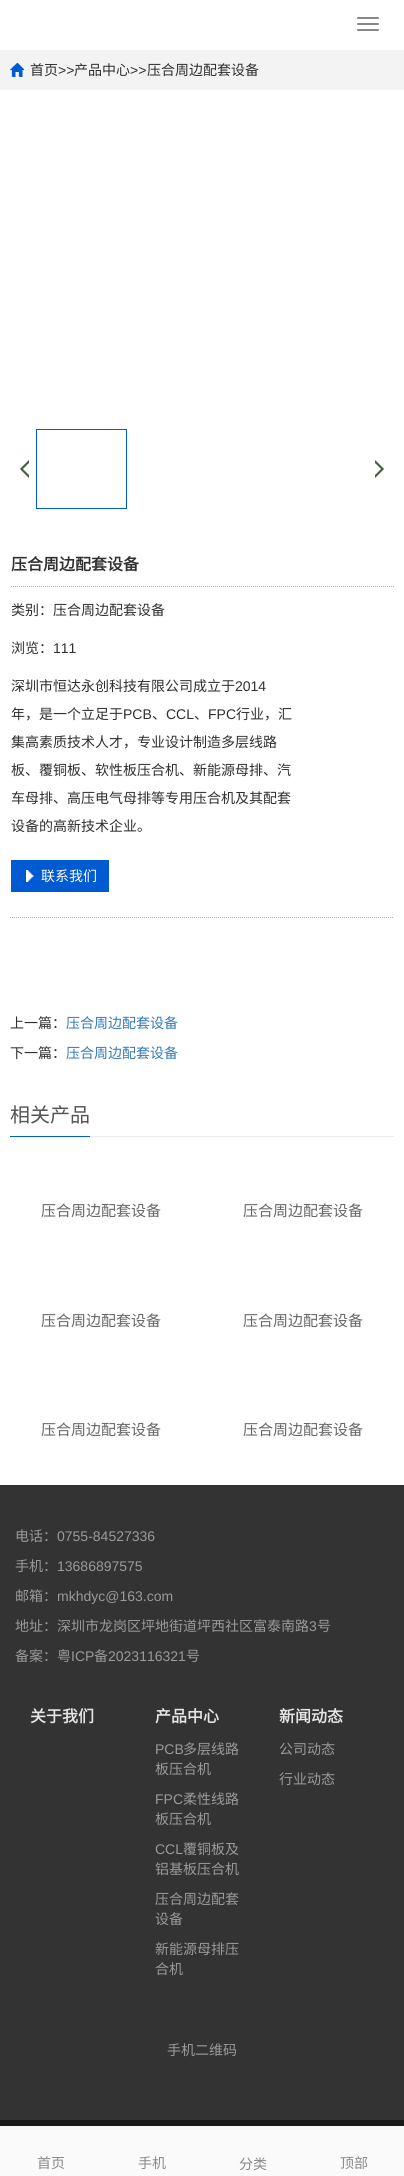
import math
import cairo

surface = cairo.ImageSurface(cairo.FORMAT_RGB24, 404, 2176)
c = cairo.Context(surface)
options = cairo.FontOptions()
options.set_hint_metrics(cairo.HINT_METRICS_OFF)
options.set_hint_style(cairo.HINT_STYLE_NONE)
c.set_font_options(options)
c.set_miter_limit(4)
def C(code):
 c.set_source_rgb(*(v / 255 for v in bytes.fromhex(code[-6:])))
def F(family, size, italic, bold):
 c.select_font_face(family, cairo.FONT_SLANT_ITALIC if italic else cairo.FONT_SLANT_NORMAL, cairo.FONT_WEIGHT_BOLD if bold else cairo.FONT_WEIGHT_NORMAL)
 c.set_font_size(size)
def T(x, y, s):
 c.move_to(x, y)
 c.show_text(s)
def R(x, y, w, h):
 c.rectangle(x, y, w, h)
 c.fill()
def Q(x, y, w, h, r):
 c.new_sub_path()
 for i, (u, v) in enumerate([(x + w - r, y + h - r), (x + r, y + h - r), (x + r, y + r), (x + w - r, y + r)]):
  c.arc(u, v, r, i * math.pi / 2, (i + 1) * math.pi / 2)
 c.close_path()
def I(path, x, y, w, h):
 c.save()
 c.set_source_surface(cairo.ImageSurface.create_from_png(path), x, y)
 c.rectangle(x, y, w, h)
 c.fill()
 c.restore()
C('ffffff')
c.paint()
C('888888')
Q(357,17,22,2,1)
c.fill()
Q(357,23,22,2,1)
c.fill()
Q(357,29,22,2,1)
c.fill()
C('f3f3f3')
R(0,50,404,40)
I('1.png',10,63,14,14)
F('Noto Sans CJK SC',14,0,0)
C('2f2f2f')
T(30,75,'首页')
F('Liberation Sans',14,0,0)
T(58,75,'>>')
F('Noto Sans CJK SC',14,0,0)
T(74,75,'产品中心')
F('Liberation Sans',14,0,0)
T(130,75,'>>')
F('Noto Sans CJK SC',14,0,0)
T(147,75,'压合周边配套设备')
c.new_path()
c.move_to(10,917.5)
c.line_to(394,917.5)
C('a9a9a9')
c.set_line_width(1)
c.set_dash([1,1])
c.stroke()
I('2.png',20,460,9,18)
c.rectangle(36.5,429.5,90,79)
C('005ad2')
c.set_dash([])
c.stroke()
I('3.png',375,460,9,18)
c.new_path()
c.move_to(11,586.5)
c.line_to(394,586.5)
C('a9a9a9')
c.set_dash([1,1])
c.stroke()
F('Noto Sans CJK SC',16,0,1)
C('2f2f2f')
T(11,570,'压合周边配套设备')
F('Noto Sans CJK SC',14,0,0)
T(11,615,'类别：压合周边配套设备')
T(11,653,'浏览：')
F('Liberation Sans',14,0,0)
T(53,653,'111')
F('Noto Sans CJK SC',14,0,0)
T(11,691,'深圳市恒达永创科技有限公司成立于')
F('Liberation Sans',14,0,0)
T(235,691,'2014')
F('Noto Sans CJK SC',14,0,0)
T(11,719,'年，是一个立足于')
F('Liberation Sans',14,0,0)
T(123,719,'PCB')
F('Noto Sans CJK SC',14,0,0)
T(152,719,'、')
F('Liberation Sans',14,0,0)
T(166,719,'CCL')
F('Noto Sans CJK SC',14,0,0)
T(194,719,'、')
F('Liberation Sans',14,0,0)
T(208,719,'FPC')
F('Noto Sans CJK SC',14,0,0)
T(236,719,'行业，汇')
T(11,747,'集高素质技术人才，专业设计制造多层线路')
T(11,775,'板、覆铜板、软性板压合机、新能源母排、汽')
T(11,803,'车母排、高压电气母排等专用压合机及其配套')
T(11,831,'设备的高新技术企业。')
C('005ad2')
R(11,860,98,32)
I('4.png',26,870,8,12)
C('ffffff')
T(41,881,'联系我们')
C('2f2f2f')
T(10,1028,'上一篇：')
C('337ab7')
T(66,1028,'压合周边配套设备')
C('2f2f2f')
T(10,1058,'下一篇：')
C('337ab7')
T(66,1058,'压合周边配套设备')
C('ebebeb')
R(90,1136,304,1)
F('Noto Sans CJK SC',20,0,0)
C('545454')
T(10,1122,'相关产品')
C('005ad2')
R(10,1136,80,1)
F('Noto Sans CJK SC',15,0,0)
C('666666')
T(41,1216,'压合周边配套设备')
T(243,1216,'压合周边配套设备')
T(41,1326,'压合周边配套设备')
T(243,1326,'压合周边配套设备')
T(41,1435,'压合周边配套设备')
T(243,1435,'压合周边配套设备')
C('333333')
R(0,1485,404,635)
F('Noto Sans CJK SC',14,0,0)
C('9a9a9a')
T(15,1541,'电话：')
F('Liberation Sans',14,0,0)
T(57,1541,'0755-84527336')
F('Noto Sans CJK SC',14,0,0)
T(15,1571,'手机：')
F('Liberation Sans',14,0,0)
T(57,1571,'13686897575')
F('Noto Sans CJK SC',14,0,0)
T(15,1601,'邮箱：')
F('Liberation Sans',14,0,0)
T(57,1601,'mkhdyc@163.com')
F('Noto Sans CJK SC',14,0,0)
T(15,1631,'地址：深圳市龙岗区坪地街道坪西社区富泰南路')
F('Liberation Sans',14,0,0)
T(309,1631,'3')
F('Noto Sans CJK SC',14,0,0)
T(317,1631,'号')
T(15,1661,'备案：')
T(57,1661,'粤')
F('Liberation Sans',14,0,0)
T(71,1661,'ICP')
F('Noto Sans CJK SC',14,0,0)
T(94,1661,'备')
F('Liberation Sans',14,0,0)
T(108,1661,'2023116321')
F('Noto Sans CJK SC',14,0,0)
T(186,1661,'号')
F('Noto Sans CJK SC',16,0,1)
C('e6e4e4')
T(30,1722,'关于我们')
T(155,1722,'产品中心')
F('Liberation Sans',14,0,0)
C('9a9a9a')
T(155,1754,'PCB')
F('Noto Sans CJK SC',14,0,0)
T(183,1754,'多层线路')
T(155,1774,'板压合机')
F('Liberation Sans',14,0,0)
T(155,1804,'FPC')
F('Noto Sans CJK SC',14,0,0)
T(183,1804,'柔性线路')
T(155,1824,'板压合机')
F('Liberation Sans',14,0,0)
T(155,1854,'CCL')
F('Noto Sans CJK SC',14,0,0)
T(183,1854,'覆铜板及')
T(155,1874,'铝基板压合机')
T(155,1904,'压合周边配套')
T(155,1924,'设备')
T(155,1954,'新能源母排压')
T(155,1974,'合机')
F('Noto Sans CJK SC',16,0,1)
C('e6e4e4')
T(279,1722,'新闻动态')
F('Noto Sans CJK SC',14,0,0)
C('9a9a9a')
T(279,1754,'公司动态')
T(279,1784,'行业动态')
T(167,2055,'手机二维码')
C('1a1a1d')
R(0,2120,404,6)
C('fafafa')
R(0,2126,404,50)
C('898989')
T(37,2168,'首页')
T(138,2168,'手机')
T(239,2169,'分类')
T(340,2168,'顶部')
surface.write_to_png('o.png')
